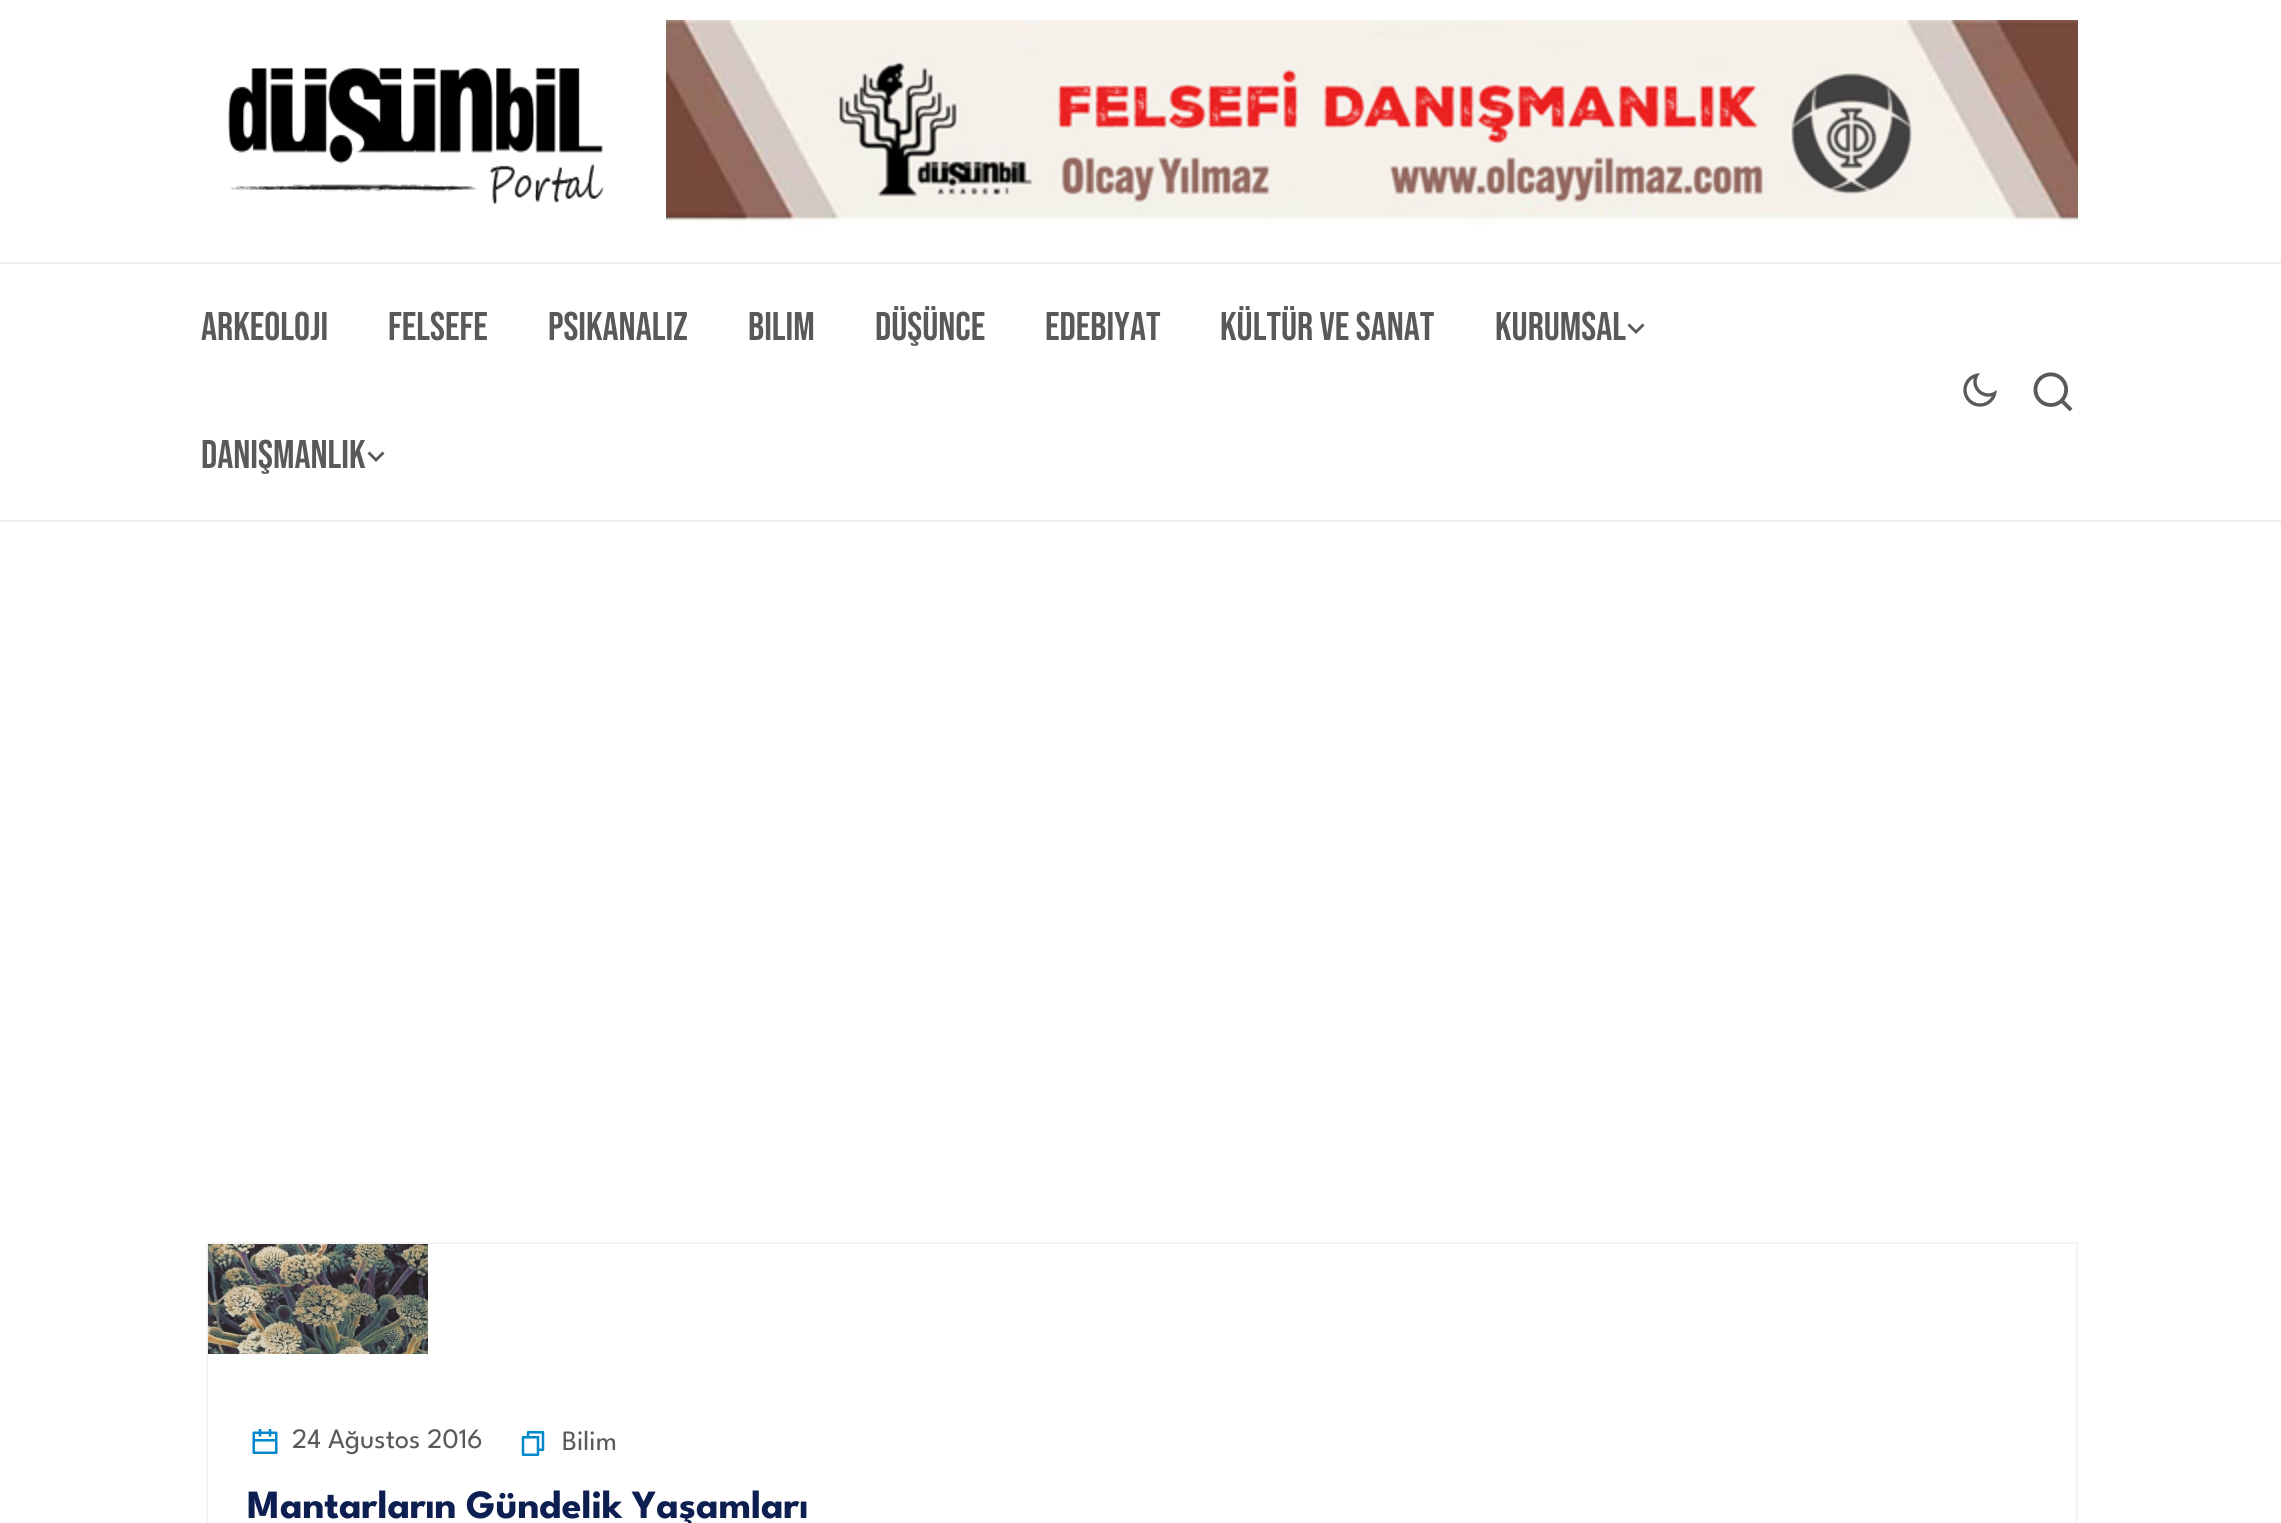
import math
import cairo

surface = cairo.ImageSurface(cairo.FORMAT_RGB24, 2281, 1523)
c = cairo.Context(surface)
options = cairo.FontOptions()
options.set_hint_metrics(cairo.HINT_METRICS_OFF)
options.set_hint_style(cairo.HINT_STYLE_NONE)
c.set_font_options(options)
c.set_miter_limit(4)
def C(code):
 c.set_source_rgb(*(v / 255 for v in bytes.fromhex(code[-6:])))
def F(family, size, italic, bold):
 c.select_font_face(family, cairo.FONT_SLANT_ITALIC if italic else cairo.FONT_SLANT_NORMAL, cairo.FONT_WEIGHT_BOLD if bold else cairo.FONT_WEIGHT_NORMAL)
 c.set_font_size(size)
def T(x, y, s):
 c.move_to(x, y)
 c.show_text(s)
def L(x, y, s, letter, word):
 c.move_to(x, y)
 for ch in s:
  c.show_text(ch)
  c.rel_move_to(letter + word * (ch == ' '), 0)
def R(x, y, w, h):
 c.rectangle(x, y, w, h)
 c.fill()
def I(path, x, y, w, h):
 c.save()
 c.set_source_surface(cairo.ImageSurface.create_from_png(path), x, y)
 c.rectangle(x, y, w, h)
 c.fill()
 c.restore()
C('ffffff')
c.paint()
I('1.png',228,67,376,137)
I('2.png',666,20,1412,205)
C('efeff0')
R(0,262,2281,2)
R(0,520,2281,2)
F('Bebas Neue',40,0,0)
C('595959')
T(201,340,'Arkeoloji')
T(388,340,'Felsefe')
T(548,340,'Psikanaliz')
T(748,340,'Bilim')
T(875,340,'Düşünce')
T(1045,340,'Edebiyat')
T(1220,340,'Kültür ve Sanat')
T(1495,340,'Kurumsal')
c.new_path()
c.move_to(1636,330)
c.line_to(1642.5,323.5)
c.line_to(1644.5,325.5)
c.line_to(1636,334)
c.line_to(1627.5,325.5)
c.line_to(1629.5,323.5)
c.close_path()
c.fill()
T(201,468,'Danışmanlık')
c.new_path()
c.move_to(376,458)
c.line_to(382.5,451.5)
c.line_to(384.5,453.5)
c.line_to(376,462)
c.line_to(367.5,453.5)
c.line_to(369.5,451.5)
c.close_path()
c.fill()
I('3.png',1963,373,34,34)
I('4.png',2033,372,40,40)
c.rectangle(207,1243,1870,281)
C('f4f4f4')
c.stroke()
I('5.png',208,1244,220,110)
I('6.png',252,1429,26,25)
F('League Spartan',28,0,0)
C('595959')
T(292,1448,'24 Ağustos 2016')
I('7.png',521,1431,24,25)
T(562,1450,'Bilim')
F('League Spartan',40,0,1)
C('0d1e50')
L(247,1518,'Mantarların Gündelik Yaşamları',0,-1)
surface.write_to_png('o.png')
